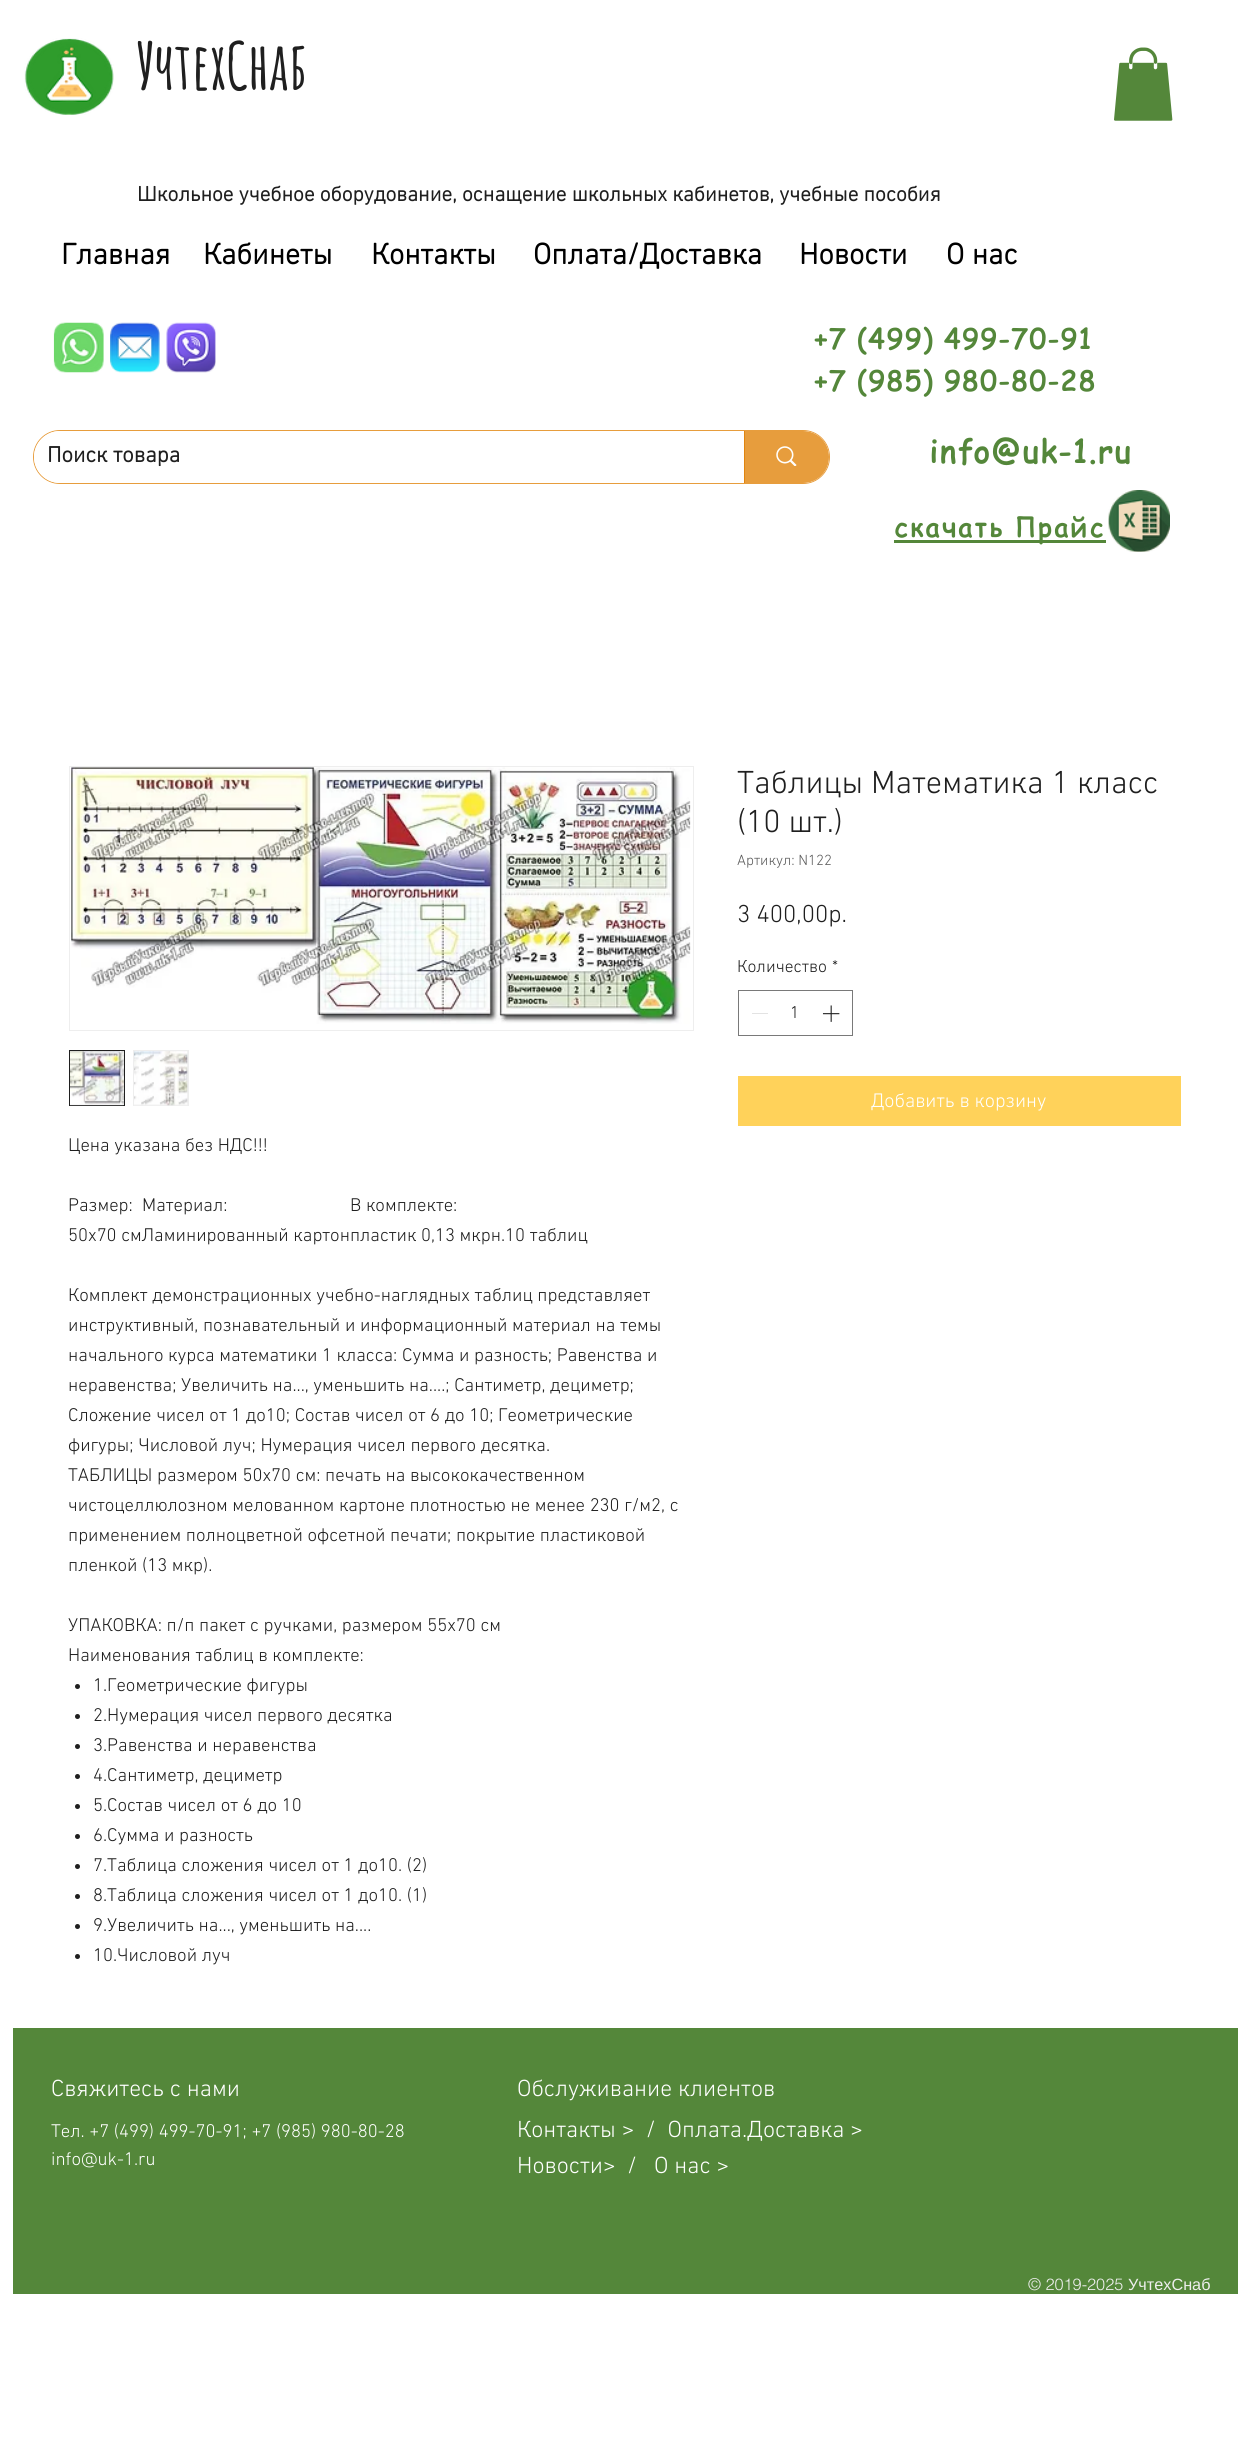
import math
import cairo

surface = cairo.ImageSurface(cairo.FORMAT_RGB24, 1248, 2458)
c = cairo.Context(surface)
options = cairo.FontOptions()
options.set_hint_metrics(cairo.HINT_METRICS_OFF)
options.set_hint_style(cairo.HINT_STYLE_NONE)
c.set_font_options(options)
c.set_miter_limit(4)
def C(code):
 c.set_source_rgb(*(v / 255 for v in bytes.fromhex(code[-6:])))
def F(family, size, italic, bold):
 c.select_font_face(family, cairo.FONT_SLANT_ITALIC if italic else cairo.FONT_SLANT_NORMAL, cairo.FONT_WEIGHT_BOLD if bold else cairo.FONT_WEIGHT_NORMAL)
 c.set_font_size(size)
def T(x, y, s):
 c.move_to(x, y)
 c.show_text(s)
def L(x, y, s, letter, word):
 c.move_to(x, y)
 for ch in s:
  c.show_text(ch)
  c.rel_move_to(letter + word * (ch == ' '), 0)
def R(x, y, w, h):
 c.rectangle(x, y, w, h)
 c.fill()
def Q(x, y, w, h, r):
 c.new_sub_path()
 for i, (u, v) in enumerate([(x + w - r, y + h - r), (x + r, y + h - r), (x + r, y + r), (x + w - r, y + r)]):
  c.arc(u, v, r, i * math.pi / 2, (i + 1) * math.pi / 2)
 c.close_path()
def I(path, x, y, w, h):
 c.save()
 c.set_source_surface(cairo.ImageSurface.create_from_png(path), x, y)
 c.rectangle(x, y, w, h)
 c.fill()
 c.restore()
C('ffffff')
c.paint()
I('1.png',24,38,90,77)
F('Amatic SC',65,0,1)
C('1f1f1f')
T(137,90,'УчтехСнаб')
I('2.png',1114,47,59,74)
F('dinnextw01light',21.25,0,1)
T(137,201,'Школьное учебное оборудование, оснащение школьных кабинетов, учебные пособия')
F('dinnextw01light',30,0,1)
C('000000')
T(61,264,'Главная')
T(203,264,'Кабинеты')
T(371,264,'Контакты')
T(533,264,'Оплата/Доставка')
T(799,264,'Новости')
T(946,264,'О нас')
I('3.png',53,322,51,51)
I('4.png',110,322,50,51)
I('5.png',166,322,50,51)
F('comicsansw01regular',27.5,0,1)
C('54873a')
L(814,349,'+7 (499) 499-70-91',1.4,0)
L(814,391,'+7 (985) 980-80-28',1.4,0)
Q(33.5,430.5,796,53,26.5)
C('e79d3d')
c.set_line_width(1)
c.stroke()
C('ffffff')
Q(34,431,795,52,26)
c.fill()
F('dinnextw01light',22.5,0,1)
C('1f1f1f')
T(47,462,'Поиск товара')
c.set_source_rgba(0.875,0.494,0,0.76)
c.new_path()
c.move_to(744,431)
c.line_to(803,431)
c.curve_to(817.5,431,829,442.5,829,457)
c.curve_to(829,471.5,817.5,483,803,483)
c.line_to(744,483)
c.close_path()
c.fill()
C('e1850f')
R(744,431,1,52)
I('6.png',776,446,21,20)
F('comicsansw01regular',31.25,0,1)
C('54873a')
L(929,463,'info@uk-1.ru',1.5,0)
R(894,540,212,3)
F('comicsansw01regular',26.25,0,1)
L(894,537,'скачать Прайс',2.6,0)
I('7.png',1108,490,62,62)
F('dinnextw01light Light',32.5,0,0)
C('1f1f1f')
T(737,793,'Таблицы Математика 1 класс')
T(737,832,'(10 шт.)')
F('dinnextw01light Light',15,0,0)
C('5a5a5a')
T(737,865,'Артикул: N122')
F('dinnextw01light Light',25,0,0)
C('1f1f1f')
T(737,922,'3 400,00p.')
F('dinnextw01light Light',17.5,0,0)
T(737,972,'Количество')
T(832,972,'*')
c.rectangle(738.5,990.5,114,45)
C('797979')
c.stroke()
C('e3e3e3')
R(752,1013,16,1)
C('1f1f1f')
T(790,1018,'1')
I('8.png',822,1005,18,17)
C('ffd25a')
R(738,1076,443,50)
F('dinnextw01light Light',20,0,0)
C('ffffff')
T(871,1107,'Добавить в корзину')
c.rectangle(69.5,766.5,624,264)
C('eeeeee')
c.stroke()
I('9.png',71,767,620,257)
c.rectangle(69.5,1050.5,55,55)
c.fill_preserve()
C('1f1f1f')
c.stroke()
I('10.png',70,1051,54,55)
C('eeeeee')
R(133,1050,56,56)
I('11.png',134,1051,54,55)
F('dinnextw01light Light',18.75,0,0)
C('1f1f1f')
T(68,1151,'Цена указана без НДС!!!')
T(68,1211,'Размер:')
T(142,1211,'Материал:')
T(350,1211,'В комплекте:')
T(68,1241,'50х70 смЛаминированный картонпластик 0,13 мкрн.10 таблиц')
T(68,1301,'Комплект демонстрационных учебно-наглядных таблиц представляет')
T(68,1331,'инструктивный, познавательный и информационный материал на темы')
T(68,1361,'начального курса математики 1 класса: Сумма и разность; Равенства и')
T(68,1391,'неравенства; Увеличить на..., уменьшить на....; Сантиметр, дециметр;')
T(68,1421,'Сложение чисел от 1 до10; Состав чисел от 6 до 10; Геометрические')
T(68,1451,'фигуры; Числовой луч; Нумерация чисел первого десятка.')
T(68,1481,'ТАБЛИЦЫ размером 50х70 см: печать на высококачественном')
T(68,1511,'чистоцеллюлозном мелованном картоне плотностью не менее 230 г/м2, с')
T(68,1541,'применением полноцветной офсетной печати; покрытие пластиковой')
T(68,1571,'пленкой (13 мкр).')
T(68,1631,'УПАКОВКА: п/п пакет с ручками, размером 55х70 см')
T(68,1661,'Наименования таблиц в комплекте:')
c.new_path()
c.arc(77.5,1686.5,2.5,0,2 * math.pi)
c.fill()
T(93,1691,'1.Геометрические фигуры')
c.new_path()
c.arc(77.5,1716.5,2.5,0,2 * math.pi)
c.fill()
T(93,1721,'2.Нумерация чисел первого десятка')
c.new_path()
c.arc(77.5,1746.5,2.5,0,2 * math.pi)
c.fill()
T(93,1751,'3.Равенства и неравенства')
c.new_path()
c.arc(77.5,1776.5,2.5,0,2 * math.pi)
c.fill()
T(93,1781,'4.Сантиметр, дециметр')
c.new_path()
c.arc(77.5,1806.5,2.5,0,2 * math.pi)
c.fill()
T(93,1811,'5.Состав чисел от 6 до 10')
c.new_path()
c.arc(77.5,1836.5,2.5,0,2 * math.pi)
c.fill()
T(93,1841,'6.Сумма и разность')
c.new_path()
c.arc(77.5,1866.5,2.5,0,2 * math.pi)
c.fill()
T(93,1871,'7.Таблица сложения чисел от 1 до10. (2)')
c.new_path()
c.arc(77.5,1896.5,2.5,0,2 * math.pi)
c.fill()
T(93,1901,'8.Таблица сложения чисел от 1 до10. (1)')
c.new_path()
c.arc(77.5,1926.5,2.5,0,2 * math.pi)
c.fill()
T(93,1931,'9.Увеличить на..., уменьшить на....')
c.new_path()
c.arc(77.5,1956.5,2.5,0,2 * math.pi)
c.fill()
T(93,1961,'10.Числовой луч')
C('54873a')
R(13,2028,1225,266)
F('dinnextw01light Light',23.75,0,0)
C('ffffff')
T(51,2096,'Свяжитесь с нами')
F('dinnextw01light Light',18.75,0,0)
T(51,2137,'Тел. +7 (499) 499-70-91; +7 (985) 980-80-28')
T(51,2165,'info@uk-1.ru')
F('dinnextw01light Light',23.75,0,0)
T(517,2096,'Обслуживание клиентов')
T(517,2137,'Контакты >  /  Оплата.Доставка >')
T(517,2173,'Новости>  /')
T(654,2173,'О нас >')
F('helvetica Light',16.25,0,0)
C('eeeeee')
T(1028,2290,'© 2019-2025')
F('Liberation Sans',16.25,0,0)
T(1128,2290,'УчтехСнаб')
surface.write_to_png('o.png')
